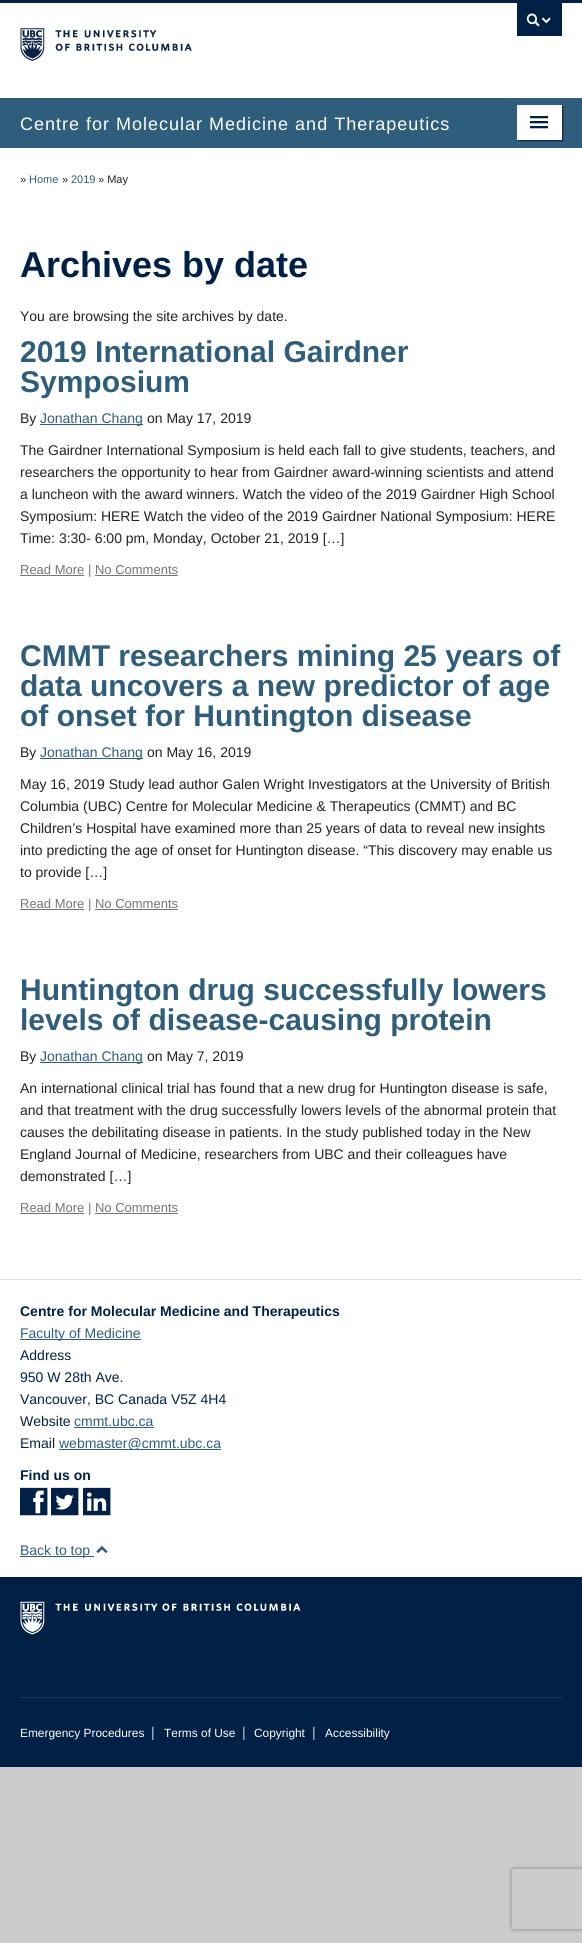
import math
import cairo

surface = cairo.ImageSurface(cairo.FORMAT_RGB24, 582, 1943)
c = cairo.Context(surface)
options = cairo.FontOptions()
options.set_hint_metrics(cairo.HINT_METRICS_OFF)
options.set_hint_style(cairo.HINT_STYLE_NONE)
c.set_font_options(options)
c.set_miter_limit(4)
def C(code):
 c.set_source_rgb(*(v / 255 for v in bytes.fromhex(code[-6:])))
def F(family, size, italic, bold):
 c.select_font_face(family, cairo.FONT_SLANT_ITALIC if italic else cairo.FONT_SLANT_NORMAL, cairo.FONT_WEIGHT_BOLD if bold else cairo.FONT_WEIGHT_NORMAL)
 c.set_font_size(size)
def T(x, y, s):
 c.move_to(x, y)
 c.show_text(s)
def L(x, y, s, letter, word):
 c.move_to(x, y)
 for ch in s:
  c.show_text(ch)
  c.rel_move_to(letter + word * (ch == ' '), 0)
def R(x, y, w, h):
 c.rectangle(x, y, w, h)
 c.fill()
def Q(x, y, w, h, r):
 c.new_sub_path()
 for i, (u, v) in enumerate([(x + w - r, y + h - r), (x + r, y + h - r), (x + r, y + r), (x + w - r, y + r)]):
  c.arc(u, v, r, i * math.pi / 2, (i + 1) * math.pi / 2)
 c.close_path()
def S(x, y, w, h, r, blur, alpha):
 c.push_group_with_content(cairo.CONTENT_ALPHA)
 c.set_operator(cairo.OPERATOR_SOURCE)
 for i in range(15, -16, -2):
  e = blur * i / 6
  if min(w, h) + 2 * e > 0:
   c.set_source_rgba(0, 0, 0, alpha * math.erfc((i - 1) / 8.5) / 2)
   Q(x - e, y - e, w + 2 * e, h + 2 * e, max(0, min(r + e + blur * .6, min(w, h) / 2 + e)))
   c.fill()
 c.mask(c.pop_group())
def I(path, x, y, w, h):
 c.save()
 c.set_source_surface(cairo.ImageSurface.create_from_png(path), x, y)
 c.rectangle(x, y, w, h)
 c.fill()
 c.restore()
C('cccccc')
c.paint()
C('ffffff')
R(0,3,582,95)
C('002145')
R(0,0,582,3)
I('1.png',20,28,172,33)
R(517,3,45,33)
I('2.png',526,13,25,14)
C('2f5d7c')
R(0,98,582,50)
F('Liberation Sans',18,0,0)
C('ffffff')
L(20,130,'Centre for Molecular Medicine and Therapeutics',1,0)
C('191938')
S(518,106,45,35,0,.5,1)
C('ffffff')
R(517,105,45,35)
C('bfbfbf')
R(530,118,18,1)
C('002145')
R(530,116,18,2)
C('bfbfbf')
R(530,123,18,1)
C('002145')
R(530,121,18,2)
C('bfbfbf')
R(530,128,18,1)
C('002145')
R(530,126,18,2)
C('ffffff')
R(0,148,582,1131)
F('Liberation Sans',11,0,0)
C('222222')
T(20,183,'»')
C('2f5d7c')
T(29,183,'Home')
C('222222')
T(62,183,'»')
C('2f5d7c')
T(71,183,'2019')
C('222222')
T(98,183,'» May')
F('Liberation Sans',36,0,1)
C('002145')
T(20,277,'Archives by date')
F('Liberation Sans',14,0,0)
C('222222')
T(20,321,'You are browsing the site archives by date.')
F('Liberation Sans',30,0,1)
C('2f5d7c')
T(20,362,'2019 International Gairdner')
T(20,392,'Symposium')
F('Liberation Sans',14,0,0)
C('222222')
T(20,423,'By')
C('2f5d7c')
R(40,424,103,1)
T(40,423,'Jonathan Chang')
C('222222')
T(147,423,'on May 17, 2019')
T(20,455,'The Gairdner International Symposium is held each fall to give students, teachers, and')
T(20,477,'researchers the opportunity to hear from Gairdner award-winning scientists and attend')
T(20,499,'a luncheon with the award winners. Watch the video of the 2019 Gairdner High School')
T(20,521,'Symposium: HERE Watch the video of the 2019 Gairdner National Symposium: HERE')
T(20,543,'Time: 3:30- 6:00 pm, Monday, October 21, 2019 […]')
C('757575')
R(20,575,64,1)
F('Liberation Sans',13,0,0)
T(20,574,'Read More | No Comments')
R(95,575,83,1)
F('Liberation Sans',30,0,1)
C('2f5d7c')
T(20,666,'CMMT researchers mining 25 years of')
T(20,696,'data uncovers a new predictor of age')
T(20,726,'of onset for Huntington disease')
F('Liberation Sans',14,0,0)
C('222222')
T(20,757,'By')
C('2f5d7c')
R(40,758,103,1)
T(40,757,'Jonathan Chang')
C('222222')
T(147,757,'on May 16, 2019')
T(20,789,'May 16, 2019 Study lead author Galen Wright Investigators at the University of British')
T(20,811,'Columbia (UBC) Centre for Molecular Medicine & Therapeutics (CMMT) and BC')
T(20,833,'Children’s Hospital have examined more than 25 years of data to reveal new insights')
T(20,855,'into predicting the age of onset for Huntington disease. “This discovery may enable us')
T(20,877,'to provide […]')
C('757575')
R(20,909,64,1)
F('Liberation Sans',13,0,0)
T(20,908,'Read More | No Comments')
R(95,909,83,1)
F('Liberation Sans',30,0,1)
C('2f5d7c')
T(20,1000,'Huntington drug successfully lowers')
T(20,1030,'levels of disease-causing protein')
F('Liberation Sans',14,0,0)
C('222222')
T(20,1061,'By')
C('2f5d7c')
R(40,1062,103,1)
T(40,1061,'Jonathan Chang')
C('222222')
T(147,1061,'on May 7, 2019')
T(20,1093,'An international clinical trial has found that a new drug for Huntington disease is safe,')
T(20,1115,'and that treatment with the drug successfully lowers levels of the abnormal protein that')
T(20,1137,'causes the debilitating disease in patients. In the study published today in the New')
T(20,1159,'England Journal of Medicine, researchers from UBC and their colleagues have')
T(20,1181,'demonstrated […]')
C('757575')
R(20,1213,64,1)
F('Liberation Sans',13,0,0)
T(20,1212,'Read More | No Comments')
R(95,1213,83,1)
C('002145')
R(0,1577,582,190)
C('ffffff')
R(0,1280,582,297)
C('d7e0e7')
R(0,1279,582,1)
F('Liberation Sans',14,0,1)
C('002145')
T(20,1316,'Centre for Molecular Medicine and Therapeutics')
C('2f5d7c')
R(20,1339,121,1)
F('Liberation Sans',14,0,0)
T(20,1338,'Faculty of Medicine')
C('002145')
T(20,1360,'Address')
T(20,1382,'950 W 28th Ave.')
T(20,1404,'Vancouver, BC Canada V5Z 4H4')
T(20,1426,'Website')
C('2f5d7c')
T(74,1426,'cmmt.ubc.ca')
R(74,1427,80,1)
C('002145')
T(20,1448,'Email')
C('2f5d7c')
R(59,1449,162,1)
T(59,1448,'webmaster@cmmt.ubc.ca')
F('Liberation Sans',14,0,1)
C('002145')
T(20,1480,'Find us on')
I('3.png',20,1487,28,29)
I('4.png',51,1487,28,29)
I('5.png',83,1487,28,29)
C('2f5d7c')
R(20,1556,74,1)
F('Liberation Sans',14,0,0)
T(20,1555,'Back to top')
I('6.png',96,1546,12,7)
I('7.png',20,1601,281,34)
C('1f385f')
R(20,1697,542,1)
F('Liberation Sans',11.9,0,0)
C('ffffff')
T(20,1737,'Emergency Procedures')
F('Liberation Sans',14,0,0)
C('cccccc')
T(151,1737,'|')
F('Liberation Sans',11.9,0,0)
C('ffffff')
T(164,1737,'Terms of Use')
F('Liberation Sans',14,0,0)
C('cccccc')
T(242,1737,'|')
F('Liberation Sans',11.9,0,0)
C('ffffff')
T(254,1737,'Copyright')
F('Liberation Sans',14,0,0)
C('cccccc')
T(312,1737,'|')
F('Liberation Sans',11.9,0,0)
C('ffffff')
T(325,1737,'Accessibility')
c.save()
c.set_fill_rule(cairo.FILL_RULE_EVEN_ODD)
c.new_path()
c.move_to(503,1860)
c.line_to(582,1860)
c.line_to(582,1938)
c.line_to(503,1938)
c.close_path()
c.move_to(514,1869)
c.line_to(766,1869)
c.curve_to(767,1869,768,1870,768,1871)
c.line_to(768,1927)
c.curve_to(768,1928,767,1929,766,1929)
c.line_to(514,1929)
c.curve_to(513,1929,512,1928,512,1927)
c.line_to(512,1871)
c.curve_to(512,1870,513,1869,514,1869)
c.close_path()
c.clip()
C('808080')
S(512,1869,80,60,2,2.5,1)
c.restore()
surface.write_to_png('o.png')
